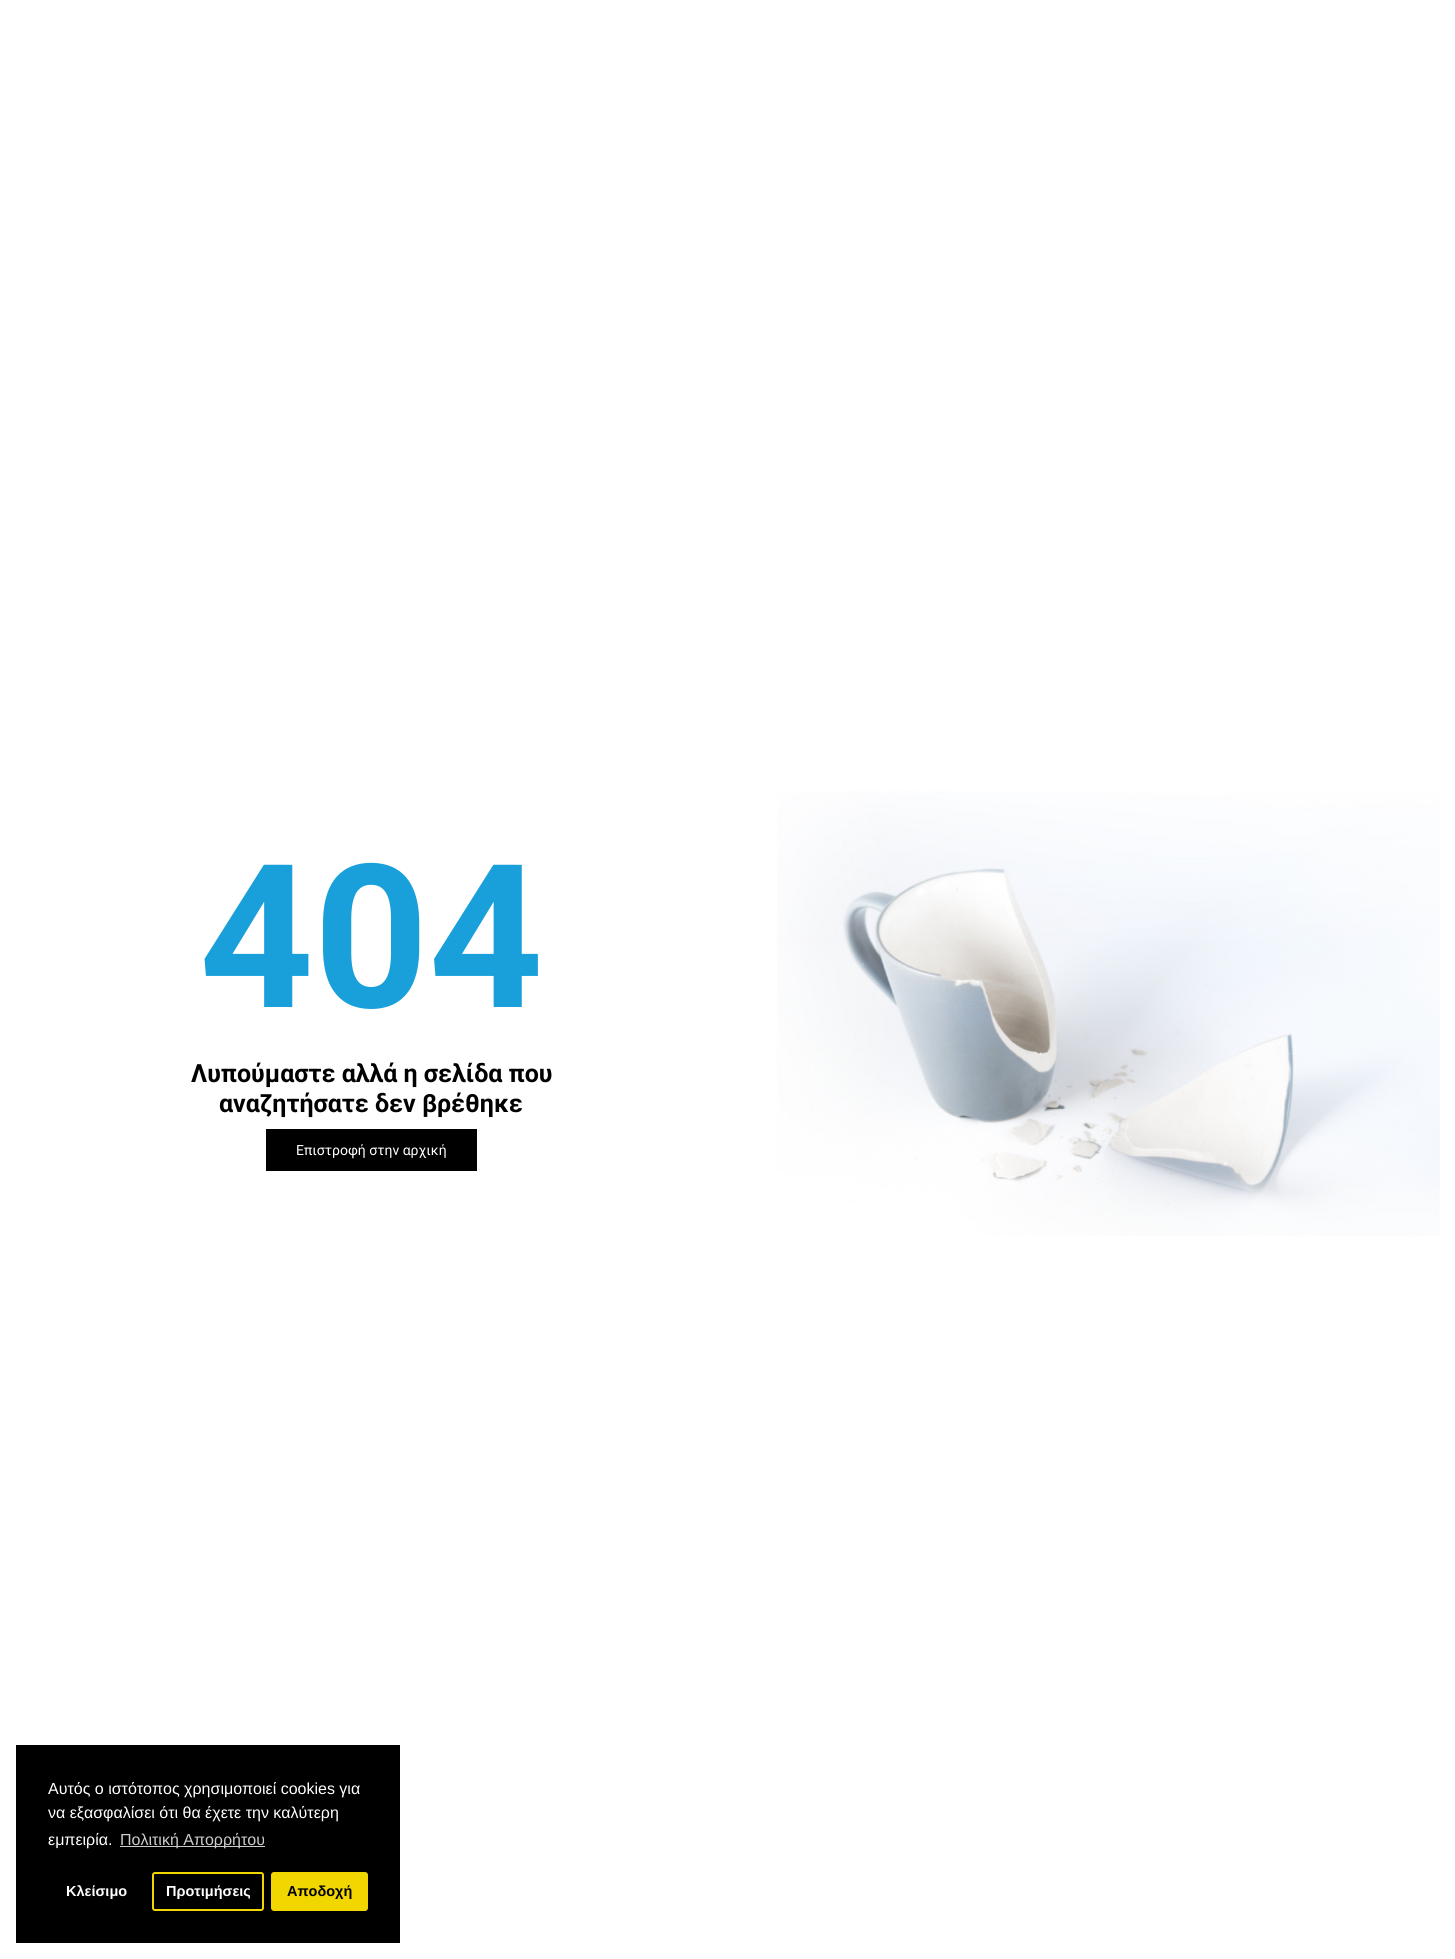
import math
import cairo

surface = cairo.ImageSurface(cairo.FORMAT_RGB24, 1455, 1959)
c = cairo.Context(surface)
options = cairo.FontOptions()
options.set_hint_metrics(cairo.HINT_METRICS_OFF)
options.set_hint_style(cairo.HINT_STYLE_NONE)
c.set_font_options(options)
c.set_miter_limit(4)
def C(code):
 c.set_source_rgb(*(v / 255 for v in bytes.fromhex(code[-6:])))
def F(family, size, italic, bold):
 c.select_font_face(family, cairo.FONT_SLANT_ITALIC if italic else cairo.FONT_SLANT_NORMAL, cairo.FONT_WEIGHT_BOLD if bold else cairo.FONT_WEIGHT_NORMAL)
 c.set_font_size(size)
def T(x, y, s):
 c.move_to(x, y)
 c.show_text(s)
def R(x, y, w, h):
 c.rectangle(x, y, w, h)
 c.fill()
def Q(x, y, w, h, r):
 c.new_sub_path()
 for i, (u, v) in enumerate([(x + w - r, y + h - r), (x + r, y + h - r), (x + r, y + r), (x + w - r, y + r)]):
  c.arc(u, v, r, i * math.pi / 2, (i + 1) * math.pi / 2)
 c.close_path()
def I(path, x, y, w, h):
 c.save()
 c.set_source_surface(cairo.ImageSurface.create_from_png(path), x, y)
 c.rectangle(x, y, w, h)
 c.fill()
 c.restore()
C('ffffff')
c.paint()
F('Roboto',200,0,1)
C('19a0da')
T(199,1007,'404')
F('Roboto',25,0,1)
C('000000')
T(191,1082,'Λυπούμαστε αλλά η σελίδα που')
T(219,1112,'αναζητήσατε δεν βρέθηκε')
R(266,1129,211,42)
F('Roboto',14,0,0)
C('ffffff')
T(296,1155,'Επιστροφή στην αρχική')
I('1.png',777,791,663,445)
C('000000')
R(16,1745,384,198)
F('Liberation Sans',16,0,0)
C('ffffff')
T(48,1794,'Αυτός ο ιστότοπος χρησιμοποιεί cookies για')
T(48,1818,'να εξασφαλίσει ότι θα έχετε την καλύτερη')
T(48,1845,'εμπειρία.')
C('cccccc')
R(120,1846,145,1)
T(120,1845,'Πολιτική Απορρήτου')
F('Liberation Sans',14.5,0,1)
C('ffffff')
T(66,1896,'Κλείσιμο')
Q(153,1873,110,37,2)
C('f1d600')
c.stroke()
C('ffffff')
T(166,1896,'Προτιμήσεις')
C('f1d600')
Q(271,1872,97,39,3)
c.fill()
C('000000')
T(287,1896,'Αποδοχή')
surface.write_to_png('o.png')
